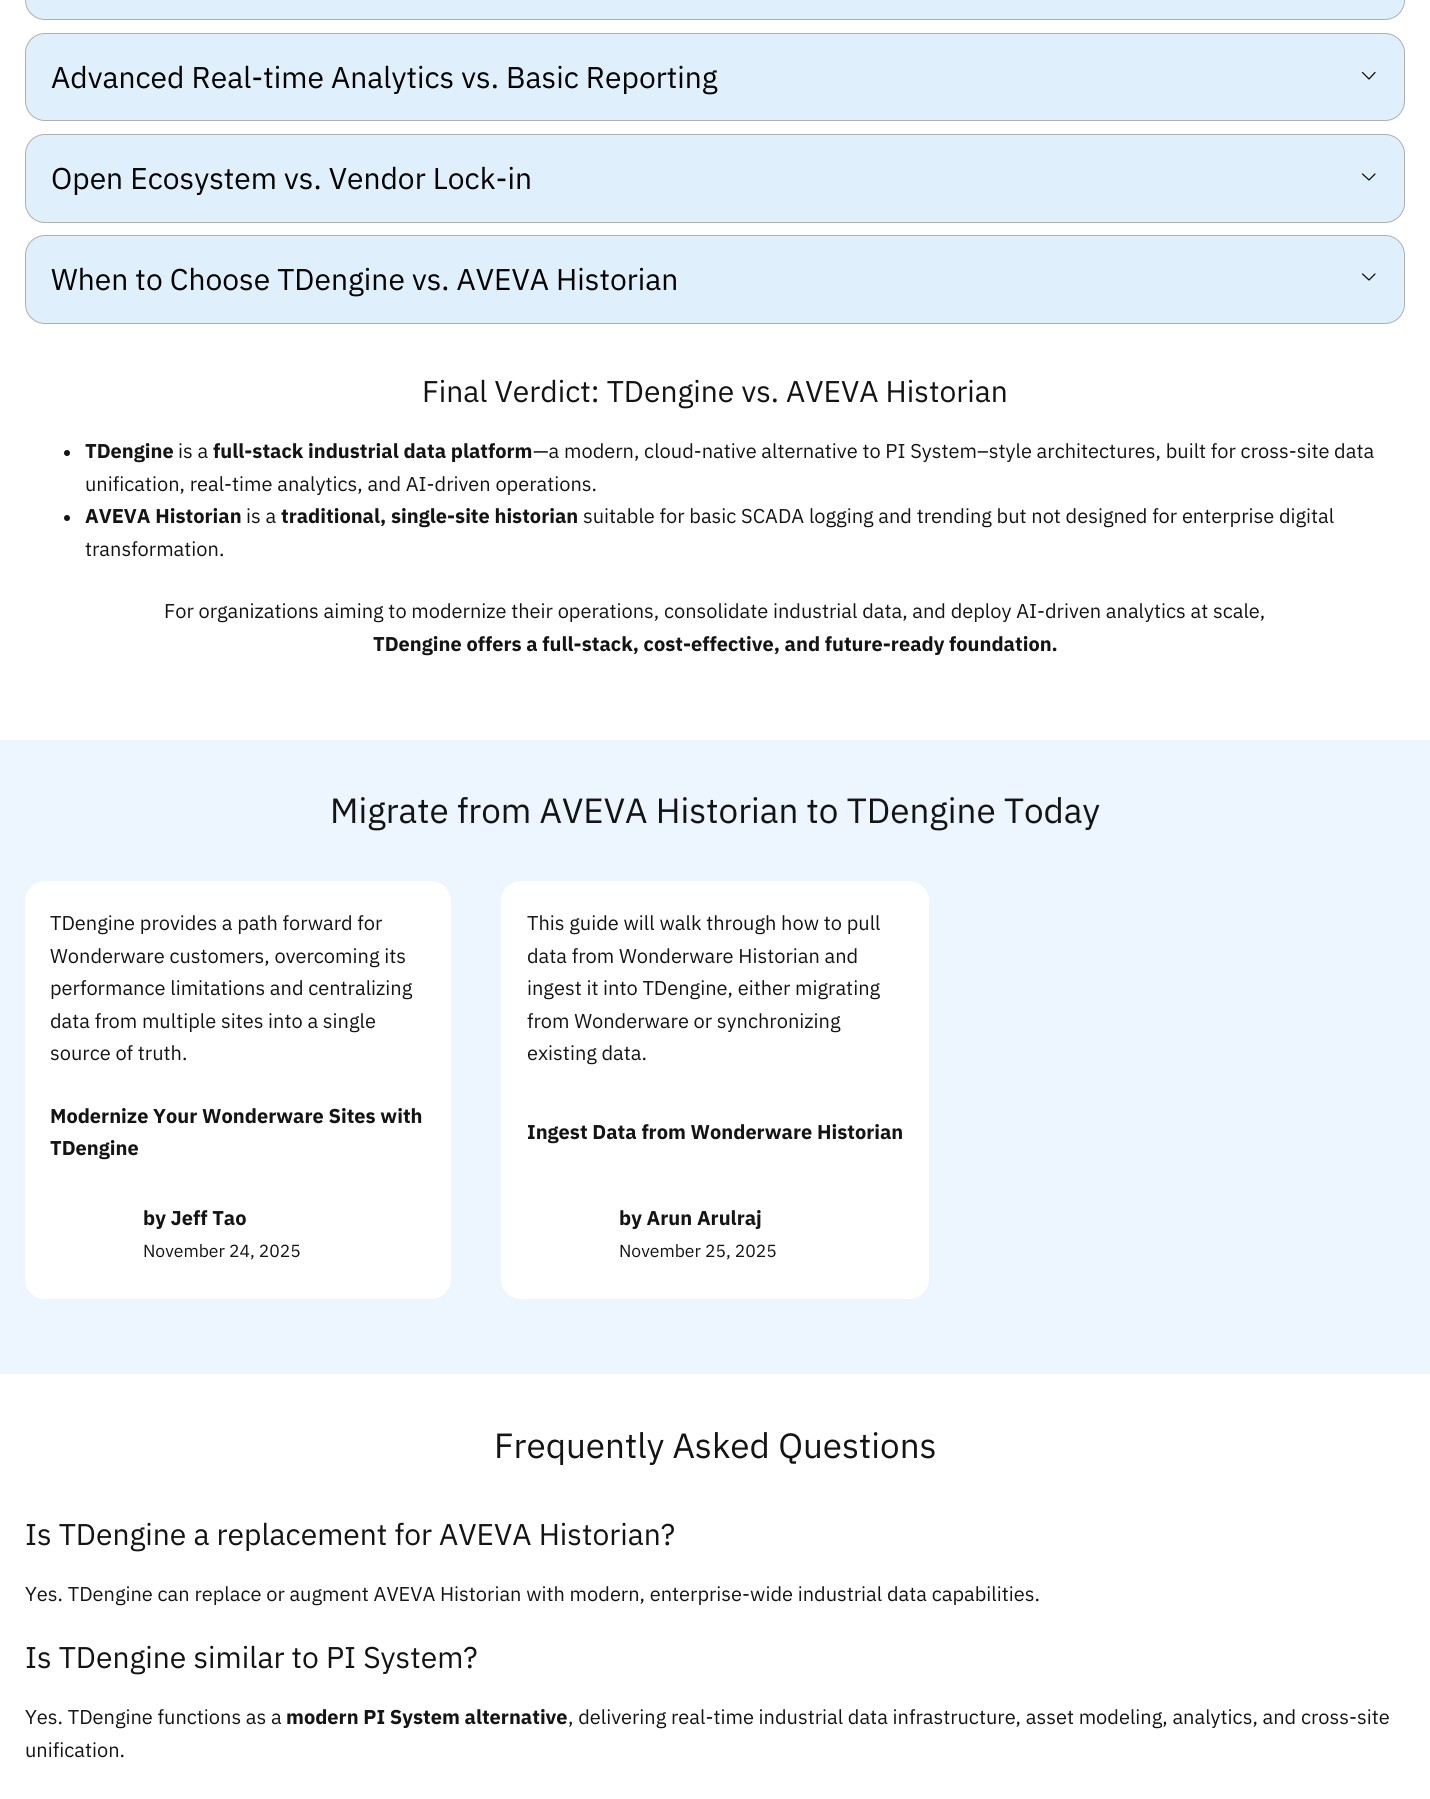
import math
import cairo

surface = cairo.ImageSurface(cairo.FORMAT_RGB24, 1430, 1799)
c = cairo.Context(surface)
options = cairo.FontOptions()
options.set_hint_metrics(cairo.HINT_METRICS_OFF)
options.set_hint_style(cairo.HINT_STYLE_NONE)
c.set_font_options(options)
c.set_miter_limit(4)
def C(code):
 c.set_source_rgb(*(v / 255 for v in bytes.fromhex(code[-6:])))
def F(family, size, italic, bold):
 c.select_font_face(family, cairo.FONT_SLANT_ITALIC if italic else cairo.FONT_SLANT_NORMAL, cairo.FONT_WEIGHT_BOLD if bold else cairo.FONT_WEIGHT_NORMAL)
 c.set_font_size(size)
def T(x, y, s):
 c.move_to(x, y)
 c.show_text(s)
def R(x, y, w, h):
 c.rectangle(x, y, w, h)
 c.fill()
def Q(x, y, w, h, r):
 c.new_sub_path()
 for i, (u, v) in enumerate([(x + w - r, y + h - r), (x + r, y + h - r), (x + r, y + r), (x + w - r, y + r)]):
  c.arc(u, v, r, i * math.pi / 2, (i + 1) * math.pi / 2)
 c.close_path()
C('ffffff')
c.paint()
C('dff0fc')
Q(25.5,-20.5,1379,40,19.5)
c.fill_preserve()
C('afafaf')
c.set_line_width(1)
c.stroke()
C('dff0fc')
Q(25.5,33.5,1379,87,19.5)
c.fill_preserve()
C('afafaf')
c.stroke()
F('IBM Plex Sans',30,0,0)
C('000000')
T(51,88,'Advanced Real-time Analytics vs. Basic Reporting')
c.new_path()
c.move_to(1375,72.5)
c.line_to(1369,79)
c.line_to(1362.5,72.5)
c.set_line_width(1.2)
c.set_line_cap(cairo.LINE_CAP_ROUND)
c.set_line_join(cairo.LINE_JOIN_ROUND)
c.stroke()
C('dff0fc')
Q(25.5,134.5,1379,88,19.5)
c.fill_preserve()
C('afafaf')
c.set_line_width(1)
c.set_line_cap(cairo.LINE_CAP_BUTT)
c.set_line_join(cairo.LINE_JOIN_MITER)
c.stroke()
C('000000')
T(51,189,'Open Ecosystem vs. Vendor Lock-in')
c.new_path()
c.move_to(1375,174)
c.line_to(1369,180)
c.line_to(1362.5,174)
c.set_line_width(1.2)
c.set_line_cap(cairo.LINE_CAP_ROUND)
c.set_line_join(cairo.LINE_JOIN_ROUND)
c.stroke()
C('dff0fc')
Q(25.5,235.5,1379,88,19.5)
c.fill_preserve()
C('afafaf')
c.set_line_width(1)
c.set_line_cap(cairo.LINE_CAP_BUTT)
c.set_line_join(cairo.LINE_JOIN_MITER)
c.stroke()
C('000000')
T(51,290,'When to Choose TDengine vs. AVEVA Historian')
c.new_path()
c.move_to(1375,274)
c.line_to(1369,280)
c.line_to(1362.5,274)
c.set_line_width(1.2)
c.set_line_cap(cairo.LINE_CAP_ROUND)
c.set_line_join(cairo.LINE_JOIN_ROUND)
c.stroke()
C('141414')
T(422,402,'Final Verdict: TDengine vs. AVEVA Historian')
c.new_path()
c.arc(67,453,3,0,2 * math.pi)
c.fill()
F('IBM Plex Sans',20,0,1)
T(85,458,'TDengine')
F('IBM Plex Sans',20,0,0)
T(178,458,'is a')
F('IBM Plex Sans',20,0,1)
T(213,458,'full-stack industrial data platform')
F('IBM Plex Sans',20,0,0)
T(533,458,'—a modern, cloud-native alternative to PI System–style architectures, built for cross-site data')
T(85,491,'unification, real-time analytics, and AI-driven operations.')
c.new_path()
c.arc(67,518,3,0,2 * math.pi)
c.fill()
F('IBM Plex Sans',20,0,1)
T(85,523,'AVEVA Historian')
F('IBM Plex Sans',20,0,0)
T(246,523,'is a')
F('IBM Plex Sans',20,0,1)
T(281,523,'traditional, single-site historian')
F('IBM Plex Sans',20,0,0)
T(583,523,'suitable for basic SCADA logging and trending but not designed for enterprise digital')
T(85,556,'transformation.')
T(164,618,'For organizations aiming to modernize their operations, consolidate industrial data, and deploy AI-driven analytics at scale,')
F('IBM Plex Sans',20,0,1)
T(373,651,'TDengine offers a full-stack, cost-effective, and future-ready foundation.')
C('edf5ff')
R(0,740,1430,634)
F('IBM Plex Sans',35,0,0)
C('141414')
T(330,823,'Migrate from AVEVA Historian to TDengine Today')
C('ffffff')
Q(25,881,426,418,20)
c.fill()
F('IBM Plex Sans',20,0,0)
C('141414')
T(50,930,'TDengine provides a path forward for')
T(50,963,'Wonderware customers, overcoming its')
T(50,995,'performance limitations and centralizing')
T(50,1028,'data from multiple sites into a single')
T(50,1060,'source of truth.')
F('IBM Plex Sans',20,0,1)
T(50,1123,'Modernize Your Wonderware Sites with')
T(50,1155,'TDengine')
T(143,1225,'by Jeff Tao')
F('IBM Plex Sans',17.5,0,0)
T(143,1257,'November 24, 2025')
C('ffffff')
Q(501,881,428,418,20)
c.fill()
F('IBM Plex Sans',20,0,0)
C('141414')
T(527,930,'This guide will walk through how to pull')
T(527,963,'data from Wonderware Historian and')
T(527,995,'ingest it into TDengine, either migrating')
T(527,1028,'from Wonderware or synchronizing')
T(527,1060,'existing data.')
F('IBM Plex Sans',20,0,1)
T(527,1139,'Ingest Data from Wonderware Historian')
T(619,1225,'by Arun Arulraj')
F('IBM Plex Sans',17.5,0,0)
T(619,1257,'November 25, 2025')
F('IBM Plex Sans',35,0,0)
T(494,1458,'Frequently Asked Questions')
F('IBM Plex Sans',30,0,0)
T(25,1545,'Is TDengine a replacement for AVEVA Historian?')
F('IBM Plex Sans',20,0,0)
T(25,1601,'Yes. TDengine can replace or augment AVEVA Historian with modern, enterprise-wide industrial data capabilities.')
F('IBM Plex Sans',30,0,0)
T(25,1668,'Is TDengine similar to PI System?')
F('IBM Plex Sans',20,0,0)
T(25,1724,'Yes. TDengine functions as a')
F('IBM Plex Sans',20,0,1)
T(286,1724,'modern PI System alternative')
F('IBM Plex Sans',20,0,0)
T(568,1724,', delivering real-time industrial data infrastructure, asset modeling, analytics, and cross-site')
T(25,1757,'unification.')
surface.write_to_png('o.png')
